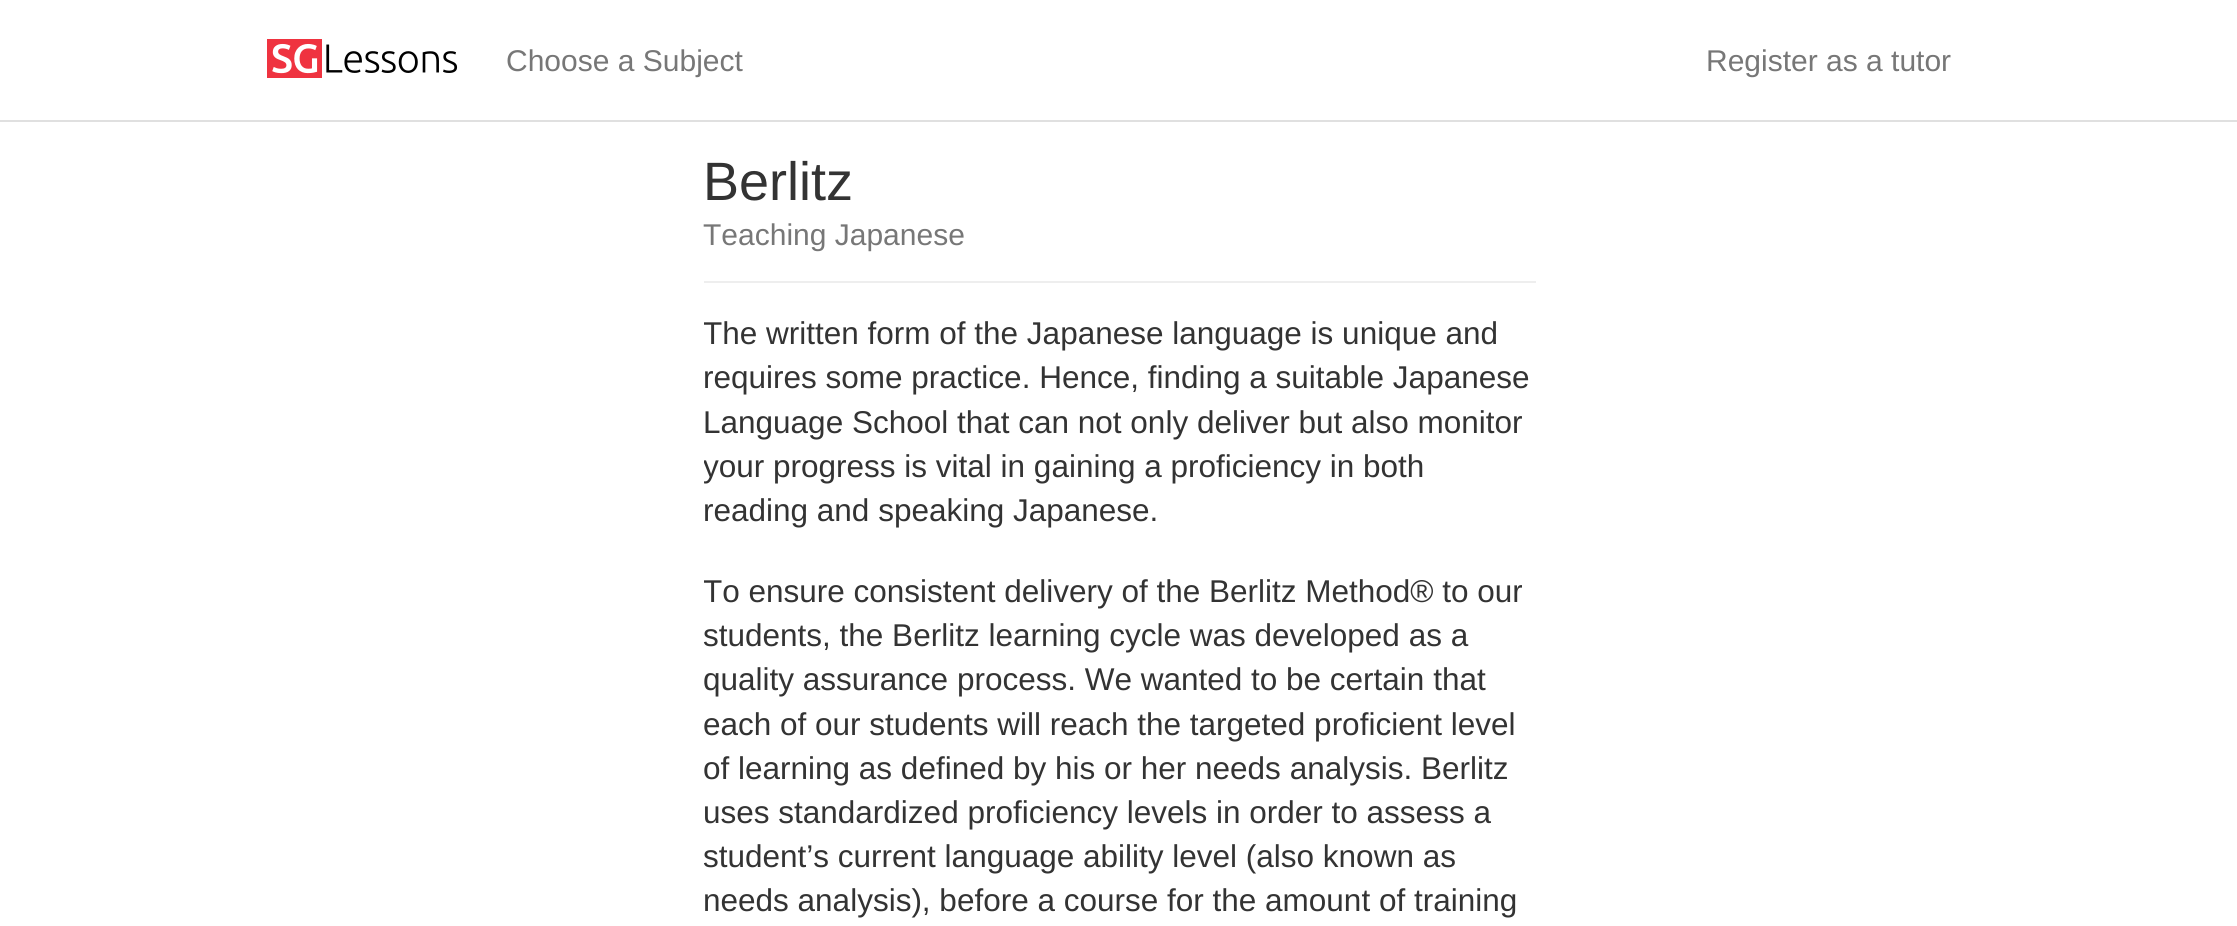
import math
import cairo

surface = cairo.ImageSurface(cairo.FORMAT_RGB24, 2237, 926)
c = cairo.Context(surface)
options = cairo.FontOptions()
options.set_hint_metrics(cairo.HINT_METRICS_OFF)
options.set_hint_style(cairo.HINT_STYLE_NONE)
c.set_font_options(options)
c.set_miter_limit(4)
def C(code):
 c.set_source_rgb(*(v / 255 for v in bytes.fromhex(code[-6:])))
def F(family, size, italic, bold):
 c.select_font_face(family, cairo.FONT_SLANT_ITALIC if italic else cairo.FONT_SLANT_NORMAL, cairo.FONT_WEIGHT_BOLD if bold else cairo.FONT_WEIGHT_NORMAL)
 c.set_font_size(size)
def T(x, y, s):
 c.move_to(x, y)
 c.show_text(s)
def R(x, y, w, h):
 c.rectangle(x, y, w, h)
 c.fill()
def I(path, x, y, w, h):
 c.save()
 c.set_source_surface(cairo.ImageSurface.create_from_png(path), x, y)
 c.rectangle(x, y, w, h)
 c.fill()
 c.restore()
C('ffffff')
c.paint()
C('e0e0e0')
R(0,120,2237,2)
I('1.png',267,39,191,39)
F('Liberation Sans',30,0,0)
C('777777')
T(506,71,'Choose a Subject')
T(1706,71,'Register as a tutor')
C('eeeeee')
R(704,281,832,2)
F('Liberation Sans',54,0,0)
C('333333')
T(703,200,'Berlitz')
F('Liberation Sans',30,0,0)
C('777777')
T(703,245,'Teaching Japanese')
c.save()
c.rectangle(704,312,832,221)
c.clip()
F('Liberation Sans',31.5,0,0)
C('333333')
T(703,344,'The written form of the Japanese language is unique and')
c.restore()
F('Liberation Sans',31.5,0,0)
C('333333')
T(703,388,'requires some practice. Hence, finding a suitable Japanese')
T(703,433,'Language School that can not only deliver but also monitor')
c.save()
c.rectangle(704,312,832,221)
c.clip()
T(703,477,'your progress is vital in gaining a proficiency in both')
c.restore()
T(703,521,'reading and speaking Japanese.')
c.save()
c.rectangle(704,570,832,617)
c.clip()
T(703,602,'To ensure consistent delivery of the Berlitz Method® to our')
c.restore()
T(703,646,'students, the Berlitz learning cycle was developed as a')
T(703,690,'quality assurance process. We wanted to be certain that')
T(703,735,'each of our students will reach the targeted proficient level')
T(703,779,'of learning as defined by his or her needs analysis. Berlitz')
T(703,823,'uses standardized proficiency levels in order to assess a')
T(703,867,'student’s current language ability level (also known as')
T(703,911,'needs analysis), before a course for the amount of training')
surface.write_to_png('o.png')
